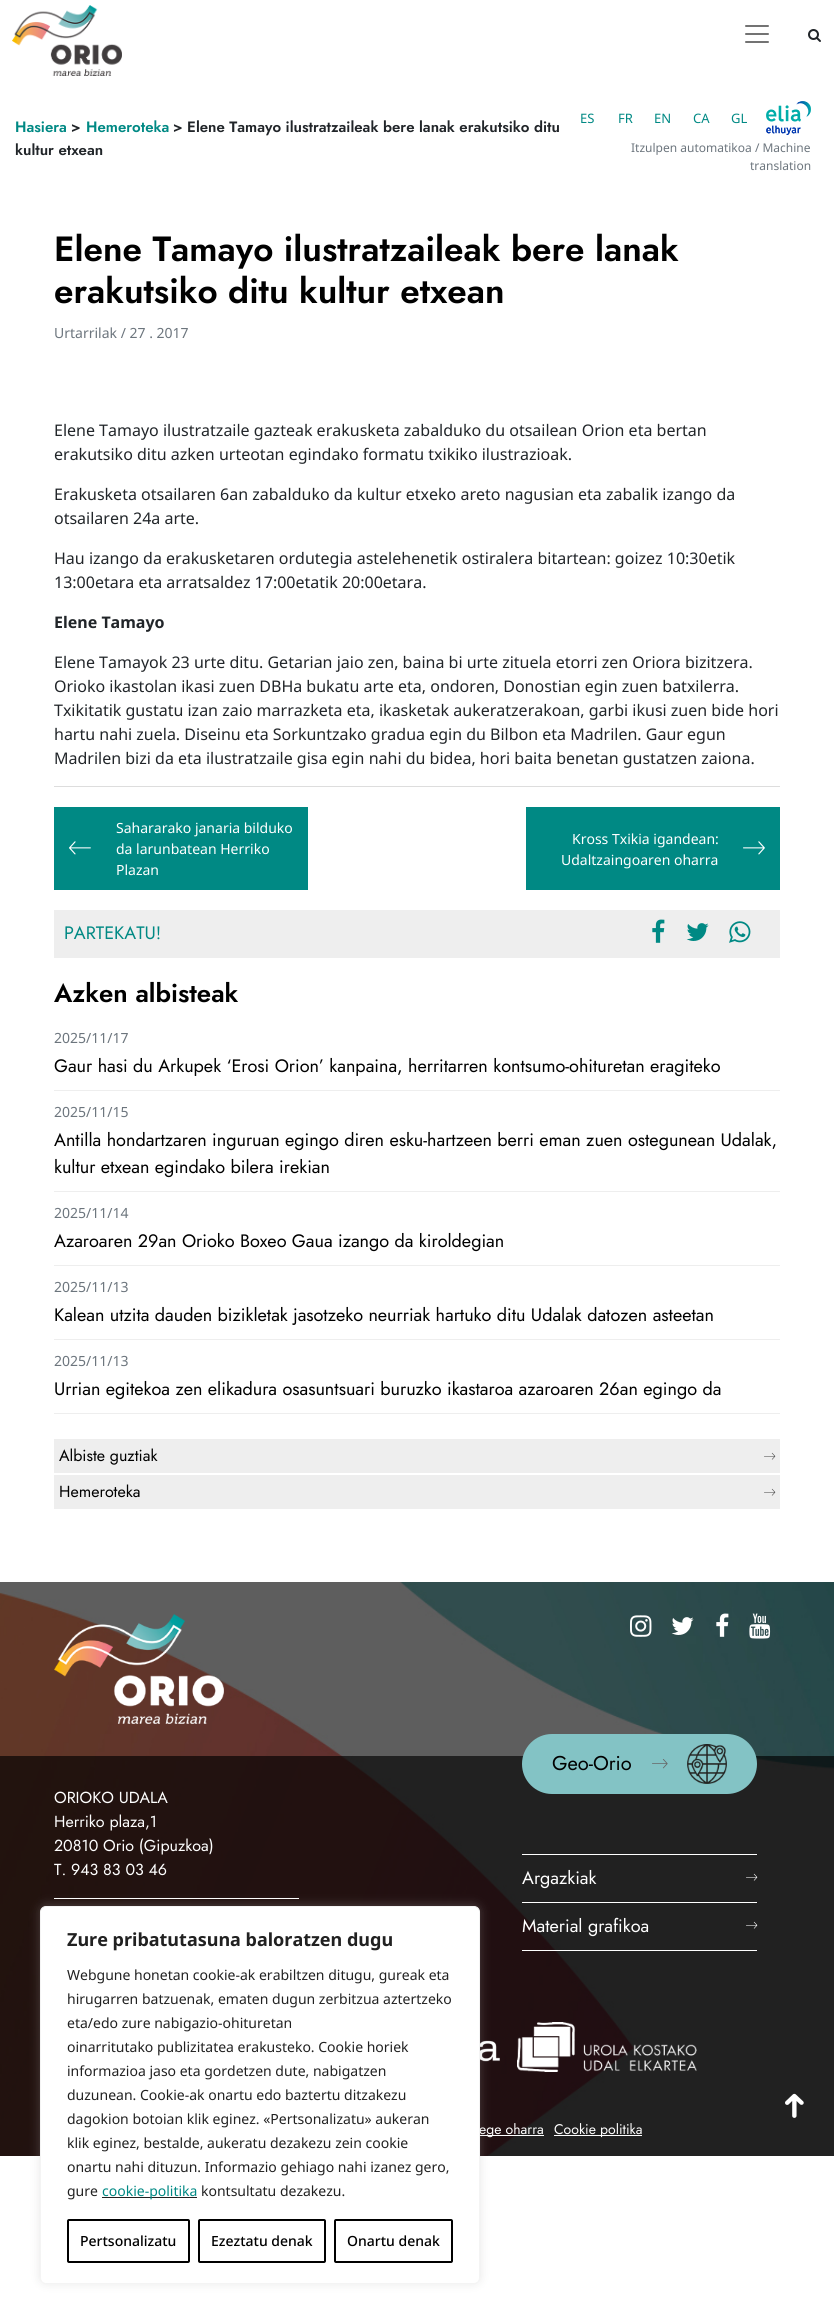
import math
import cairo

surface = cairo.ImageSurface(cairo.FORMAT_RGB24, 834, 2324)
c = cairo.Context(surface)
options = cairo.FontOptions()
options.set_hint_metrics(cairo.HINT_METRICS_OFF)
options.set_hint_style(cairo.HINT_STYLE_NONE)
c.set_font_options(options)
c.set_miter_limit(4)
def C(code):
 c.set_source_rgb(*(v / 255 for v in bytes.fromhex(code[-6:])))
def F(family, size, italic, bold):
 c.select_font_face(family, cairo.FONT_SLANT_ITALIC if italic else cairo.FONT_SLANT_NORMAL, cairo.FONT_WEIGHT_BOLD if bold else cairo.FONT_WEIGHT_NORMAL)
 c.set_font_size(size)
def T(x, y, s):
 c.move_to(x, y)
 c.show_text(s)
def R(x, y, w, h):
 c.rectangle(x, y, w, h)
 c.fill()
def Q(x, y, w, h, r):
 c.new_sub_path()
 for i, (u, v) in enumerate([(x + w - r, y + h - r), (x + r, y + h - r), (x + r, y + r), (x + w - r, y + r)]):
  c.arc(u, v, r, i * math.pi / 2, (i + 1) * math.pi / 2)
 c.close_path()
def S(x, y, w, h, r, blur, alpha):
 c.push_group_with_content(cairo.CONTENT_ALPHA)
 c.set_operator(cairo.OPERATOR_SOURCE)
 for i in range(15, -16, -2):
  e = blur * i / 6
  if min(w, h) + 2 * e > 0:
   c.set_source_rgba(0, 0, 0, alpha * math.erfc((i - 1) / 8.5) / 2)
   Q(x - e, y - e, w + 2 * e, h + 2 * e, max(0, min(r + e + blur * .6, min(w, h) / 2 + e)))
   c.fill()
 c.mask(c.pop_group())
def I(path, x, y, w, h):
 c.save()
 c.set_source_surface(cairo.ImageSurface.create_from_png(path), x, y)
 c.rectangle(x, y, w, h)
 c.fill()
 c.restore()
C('ffffff')
c.paint()
I('1.png',12,5,110,71)
I('2.png',745,25,24,18)
I('3.png',808,29,13,13)
F('Jost SemiBold',15,0,0)
C('008984')
T(15,132,'Hasiera')
C('212529')
T(71,132,'>')
C('008984')
T(86,132,'Hemeroteka')
C('212529')
T(173,132,'> Elene Tamayo ilustratzaileak bere lanak erakutsiko ditu')
T(15,155,'kultur etxean')
F('Noto Sans',13,0,0)
C('008984')
T(580,123,'ES')
T(618,123,'FR')
T(654,123,'EN')
T(693,123,'CA')
T(731,123,'GL')
I('4.png',766,101,45,34)
F('Noto Sans',12,0,0)
C('6c757d')
T(631,152,'Itzulpen automatikoa / Machine')
T(750,170,'translation')
F('Jost SemiBold',35,0,0)
C('000000')
T(54,261,'Elene Tamayo ilustratzaileak bere lanak')
T(54,303,'erakutsiko ditu kultur etxean')
F('Noto Sans',14,0,0)
C('6c757d')
T(54,338,'Urtarrilak / 27 . 2017')
F('Noto Sans',16,0,0)
C('212529')
T(54,436,'Elene Tamayo ilustratzaile gazteak erakusketa zabalduko du otsailean Orion eta bertan')
T(54,460,'erakutsiko ditu azken urteotan egindako formatu txikiko ilustrazioak.')
T(54,500,'Erakusketa otsailaren 6an zabalduko da kultur etxeko areto nagusian eta zabalik izango da')
T(54,524,'otsailaren 24a arte.')
T(54,564,'Hau izango da erakusketaren ordutegia astelehenetik ostiralera bitartean: goizez 10:30etik')
T(54,588,'13:00etara eta arratsaldez 17:00etatik 20:00etara.')
F('Noto Sans',16,0,1)
T(54,628,'Elene Tamayo')
F('Noto Sans',16,0,0)
T(54,668,'Elene Tamayok 23 urte ditu. Getarian jaio zen, baina bi urte zituela etorri zen Oriora bizitzera.')
T(54,692,'Orioko ikastolan ikasi zuen DBHa bukatu arte eta, ondoren, Donostian egin zuen batxilerra.')
T(54,716,'Txikitatik gustatu izan zaio marrazketa eta, ikasketak aukeratzerakoan, garbi ikusi zuen bide hori')
T(54,740,'hartu nahi zuela. Diseinu eta Sorkuntzako gradua egin du Bilbon eta Madrilen. Gaur egun')
T(54,764,'Madrilen bizi da eta ilustratzaile gisa egin nahi du bidea, hori baita benetan gustatzen zaiona.')
C('dddddd')
R(54,786,726,1)
C('008984')
R(54,807,254,83)
I('5.png',69,841,22,14)
F('Noto Sans',14,0,0)
C('ffffff')
T(116,833,'Sahararako janaria bilduko')
T(116,854,'da larunbatean Herriko')
T(116,875,'Plazan')
C('008984')
R(526,807,254,83)
C('ffffff')
T(572,844,'Kross Txikia igandean:')
T(561,865,'Udaltzaingoaren oharra')
I('6.png',743,841,22,14)
C('eeeeee')
R(54,910,726,48)
F('Jost',18,0,0)
C('008984')
T(64,939,'PARTEKATU!')
I('7.png',652,919,13,24)
I('8.png',686,923,23,18)
I('9.png',729,921,22,22)
F('Jost SemiBold',25.75,0,0)
C('000000')
T(54,1002,'Azken albisteak')
C('eeeeee')
R(54,1090,726,1)
F('Noto Sans',14,0,0)
C('6c757d')
T(54,1043,'2025/11/17')
F('Jost',18,0,0)
C('000000')
T(54,1072,'Gaur hasi du Arkupek ‘Erosi Orion’ kanpaina, herritarren kontsumo-ohituretan eragiteko')
C('eeeeee')
R(54,1191,726,1)
F('Noto Sans',14,0,0)
C('6c757d')
T(54,1117,'2025/11/15')
F('Jost',18,0,0)
C('000000')
T(54,1146,'Antilla hondartzaren inguruan egingo diren esku-hartzeen berri eman zuen ostegunean Udalak,')
T(54,1173,'kultur etxean egindako bilera irekian')
C('eeeeee')
R(54,1265,726,1)
F('Noto Sans',14,0,0)
C('6c757d')
T(54,1218,'2025/11/14')
F('Jost',18,0,0)
C('000000')
T(54,1247,'Azaroaren 29an Orioko Boxeo Gaua izango da kiroldegian')
C('eeeeee')
R(54,1339,726,1)
F('Noto Sans',14,0,0)
C('6c757d')
T(54,1292,'2025/11/13')
F('Jost',18,0,0)
C('000000')
T(54,1321,'Kalean utzita dauden bizikletak jasotzeko neurriak hartuko ditu Udalak datozen asteetan')
C('eeeeee')
R(54,1413,726,1)
F('Noto Sans',14,0,0)
C('6c757d')
T(54,1366,'2025/11/13')
F('Jost',18,0,0)
C('000000')
T(54,1395,'Urrian egitekoa zen elikadura osasuntsuari buruzko ikastaroa azaroaren 26an egingo da')
C('eeeeee')
R(54,1439,726,34)
F('Jost',16,0,0)
C('000000')
T(59,1461,'Albiste guztiak')
I('10.png',764,1452,12,8)
C('eeeeee')
R(54,1475,726,34)
C('000000')
T(59,1497,'Hemeroteka')
I('10.png',764,1488,12,8)
I('11.png',0,1582,834,574)
I('12.png',54,1614,170,110)
I('13.png',630,1615,22,22)
I('14.png',671,1617,23,18)
I('15.png',716,1613,13,24)
I('16.png',749,1613,22,26)
c.set_source_rgba(0,0,0,0.65)
R(0,1756,834,400)
C('83c3c5')
Q(522,1734,235,60,30)
c.fill()
F('Jost',20,0,0)
C('000000')
T(552,1770,'Geo-Orio')
I('17.png',652,1759,16,10)
I('18.png',687,1744,40,40)
C('ffffff')
R(522,1854,235,1)
F('Jost',18,0,0)
T(522,1884,'Argazkiak')
I('19.png',746,1873,12,8)
R(522,1902,235,1)
R(522,1950,235,1)
T(522,1932,'Material grafikoa')
I('19.png',746,1921,12,8)
F('Jost',16,0,0)
T(54,1803,'ORIOKO UDALA')
T(54,1827,'Herriko plaza,1')
T(54,1851,'20810 Orio (Gipuzkoa)')
T(54,1875,'T. 943 83 03 46')
R(54,1898,245,1)
I('20.png',480,2040,20,22)
I('21.png',517,2022,180,50)
R(473,2135,71,1)
F('Jost',14,0,0)
T(479,2134,'ege oharra')
R(554,2135,88,1)
T(554,2134,'Cookie politika')
I('22.png',785,2093,19,25)
C('acabab')
S(40,1905,440,378,6,5,.3)
C('ffffff')
Q(40.5,1906.5,439,377,5.5)
c.fill_preserve()
C('f4f4f4')
c.set_line_width(1)
c.stroke()
F('Noto Sans',18,0,1)
C('212121')
T(67,1946,'Zure pribatutasuna baloratzen dugu')
F('Noto Sans',14,0,0)
T(67,1980,'Webgune honetan cookie-ak erabiltzen ditugu, gureak eta')
T(67,2004,'hirugarren batzuenak, ematen dugun zerbitzua aztertzeko')
T(67,2028,'eta/edo zure nabigazio-ohituretan')
T(67,2052,'oinarritutako publizitatea erakusteko. Cookie horiek')
T(67,2076,'informazioa jaso eta gordetzen dute, nabigatzen')
T(67,2100,'duzunean. Cookie-ak onartu edo baztertu ditzakezu')
T(67,2124,'dagokion botoian klik eginez. «Pertsonalizatu» aukeran')
T(67,2148,'klik eginez, bestalde, aukeratu dezakezu zein cookie')
T(67,2172,'onartu nahi dituzun. Informazio gehiago nahi izanez gero,')
T(67,2196,'gure')
R(102,2197,95,1)
C('008984')
T(102,2196,'cookie-politika')
C('212121')
T(201,2196,'kontsultatu dezakezu.')
Q(68,2220,121,42,1)
C('000000')
c.set_line_width(2)
c.stroke()
F('Noto Sans Medium',14,0,0)
T(80,2246,'Pertsonalizatu')
Q(199,2220,126,42,1)
c.stroke()
T(211,2246,'Ezeztatu denak')
Q(335,2220,117,42,1)
c.stroke()
T(347,2246,'Onartu denak')
surface.write_to_png('o.png')
